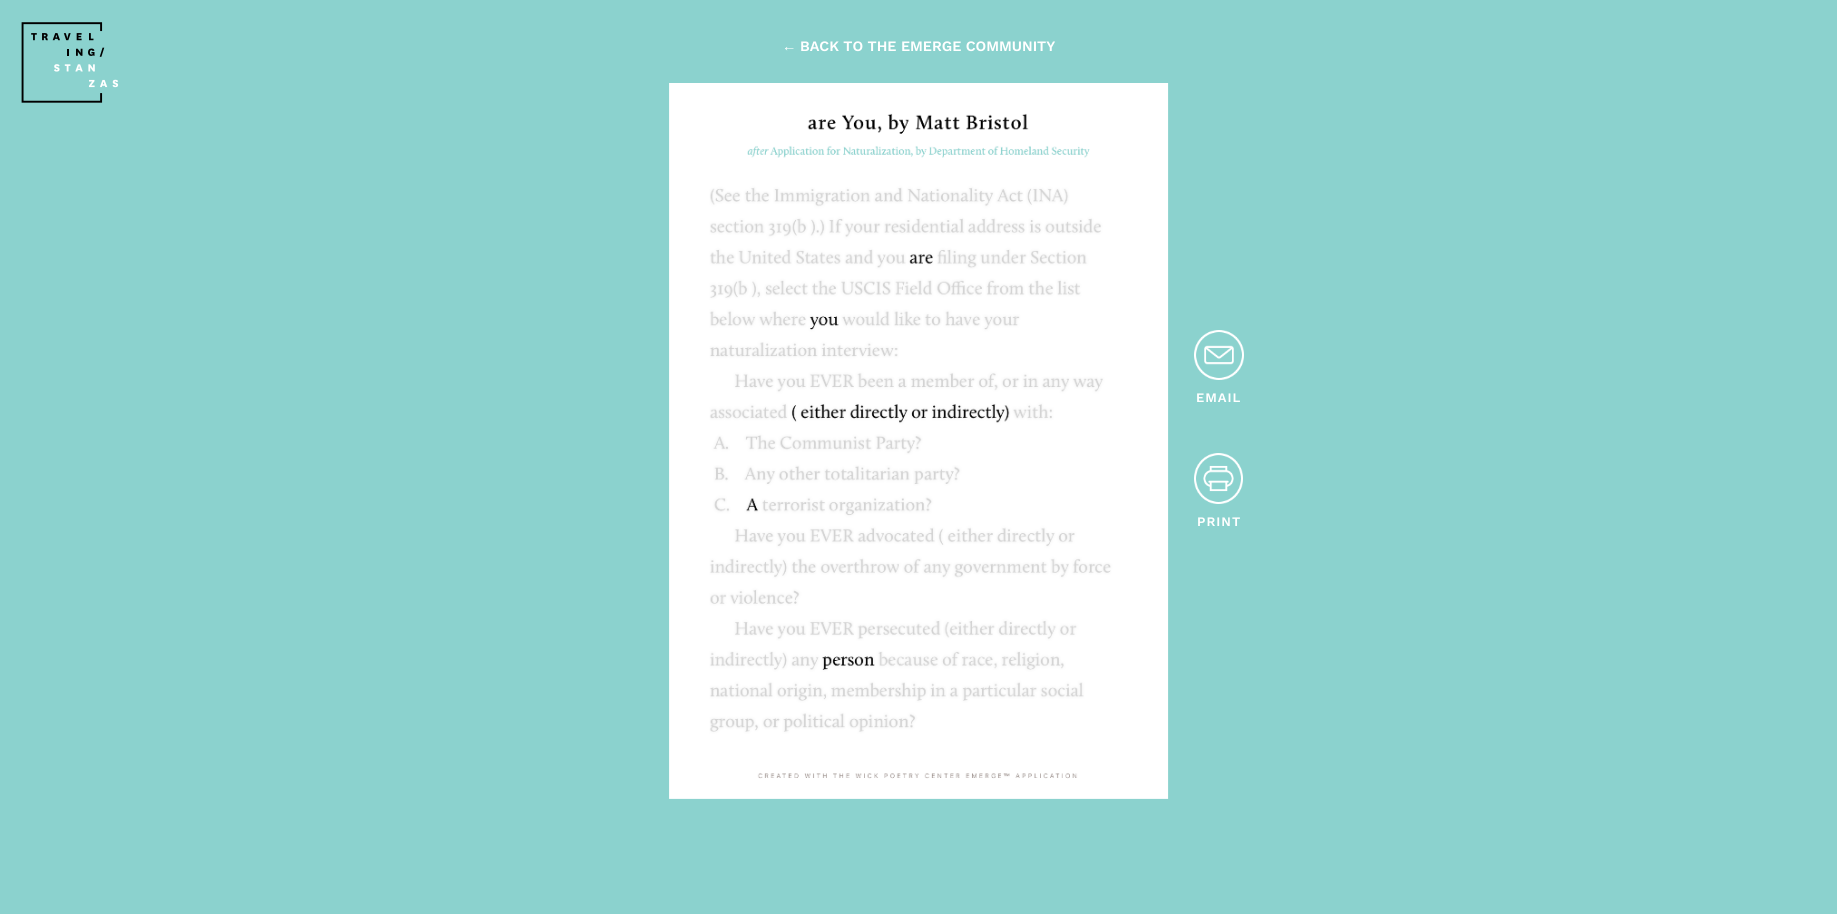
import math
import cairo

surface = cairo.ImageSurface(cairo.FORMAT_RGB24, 1837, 914)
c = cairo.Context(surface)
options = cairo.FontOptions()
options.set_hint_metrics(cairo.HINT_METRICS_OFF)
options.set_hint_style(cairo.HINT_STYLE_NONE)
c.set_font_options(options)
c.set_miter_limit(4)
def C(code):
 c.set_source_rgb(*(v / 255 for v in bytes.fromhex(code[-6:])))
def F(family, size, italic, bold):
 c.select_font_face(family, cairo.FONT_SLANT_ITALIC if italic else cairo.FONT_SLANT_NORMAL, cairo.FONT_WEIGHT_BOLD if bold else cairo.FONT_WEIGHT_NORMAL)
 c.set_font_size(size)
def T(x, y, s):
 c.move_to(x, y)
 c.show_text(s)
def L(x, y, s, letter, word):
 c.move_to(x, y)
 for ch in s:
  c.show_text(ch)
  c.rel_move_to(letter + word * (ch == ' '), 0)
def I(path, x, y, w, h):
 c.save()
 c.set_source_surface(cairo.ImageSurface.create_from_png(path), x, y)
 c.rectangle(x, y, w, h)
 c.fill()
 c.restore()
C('8bd2ce')
c.paint()
I('1.png',21,22,98,81)
F('Liberation Sans',14.4,0,1)
C('ffffff')
T(782,51,'←')
F('Work Sans SemiBold',14.4,0,0)
T(800,51,'BACK TO THE EMERGE COMMUNITY')
I('2.png',669,83,500,716)
I('3.png',1194,330,50,50)
F('Work Sans SemiBold',13,0,0)
L(1196,402,'EMAIL',1,0)
I('4.png',1194,453,49,51)
L(1197,526,'PRINT',1,0)
surface.write_to_png('o.png')
